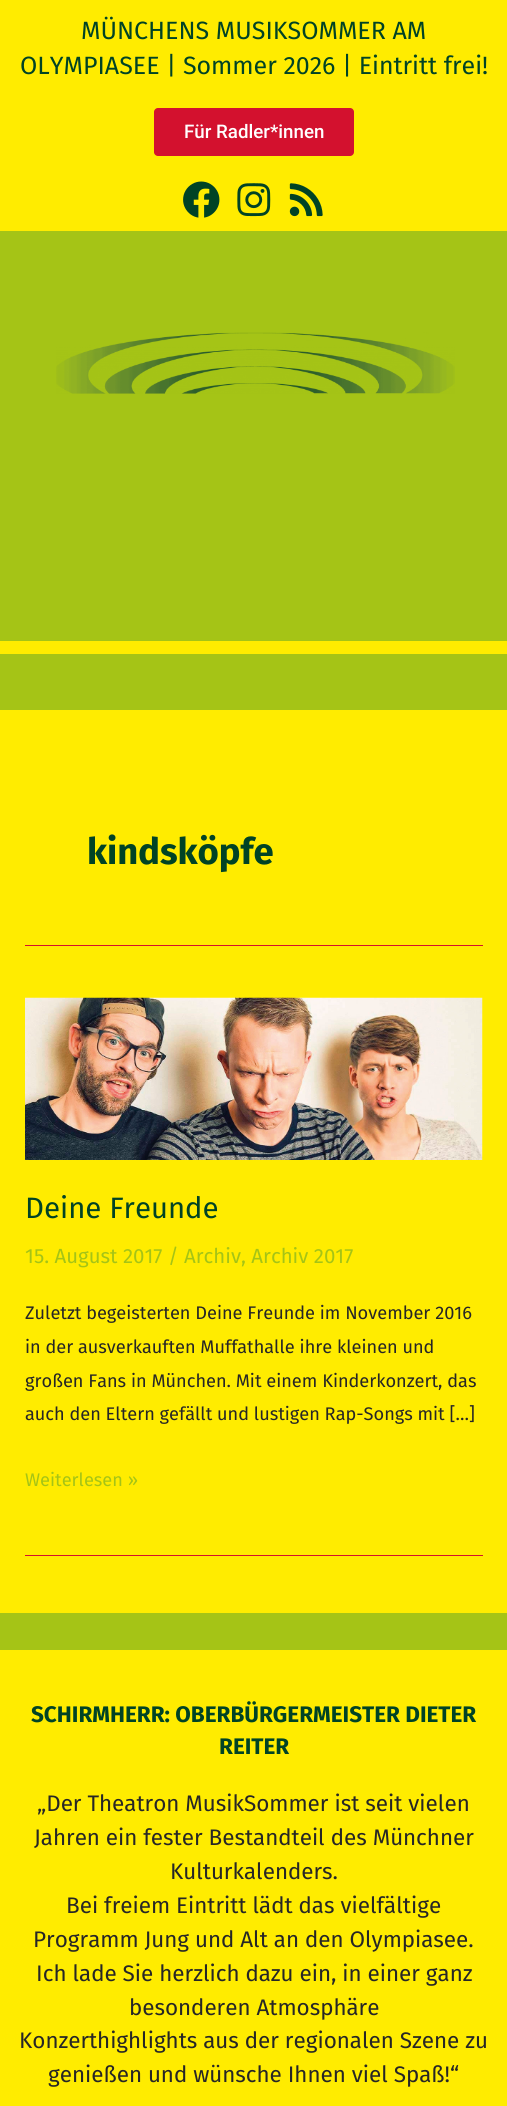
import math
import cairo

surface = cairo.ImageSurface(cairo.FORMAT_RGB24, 507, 2106)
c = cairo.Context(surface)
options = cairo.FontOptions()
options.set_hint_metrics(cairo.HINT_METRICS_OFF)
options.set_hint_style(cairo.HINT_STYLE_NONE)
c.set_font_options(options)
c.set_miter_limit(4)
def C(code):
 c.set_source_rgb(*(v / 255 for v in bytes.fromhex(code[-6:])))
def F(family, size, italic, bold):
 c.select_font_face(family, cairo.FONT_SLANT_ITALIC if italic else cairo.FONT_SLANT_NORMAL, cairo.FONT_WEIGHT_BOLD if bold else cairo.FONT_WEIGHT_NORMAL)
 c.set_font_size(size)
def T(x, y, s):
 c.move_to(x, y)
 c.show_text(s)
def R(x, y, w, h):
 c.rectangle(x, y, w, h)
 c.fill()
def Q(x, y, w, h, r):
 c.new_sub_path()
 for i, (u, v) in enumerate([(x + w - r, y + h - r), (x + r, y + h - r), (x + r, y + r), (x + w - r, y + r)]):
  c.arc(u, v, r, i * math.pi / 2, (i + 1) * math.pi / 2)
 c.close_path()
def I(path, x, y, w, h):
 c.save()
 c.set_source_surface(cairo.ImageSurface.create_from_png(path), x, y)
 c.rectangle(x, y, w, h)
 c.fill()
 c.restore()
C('a5c416')
c.paint()
C('ffec00')
R(0,0,507,231)
F('Fira Sans',25,0,0)
C('004325')
T(81,39,'MÜNCHENS MUSIKSOMMER AM')
T(20,74,'OLYMPIASEE | Sommer 2026 | Eintritt frei!')
C('d3112e')
Q(154,108,200,48,4)
c.fill()
F('Roboto Medium',18.75,0,0)
C('ffffff')
T(184,138,'Für Radler*innen')
I('1.png',183,181,37,37)
I('2.png',237,183,34,34)
I('3.png',289,183,34,34)
I('4.png',56,332,399,62)
C('ffec00')
R(0,641,507,13)
R(0,710,507,903)
C('d3112e')
R(25,945,458,1)
F('Fira Sans',36.5,0,1)
C('004325')
T(87,864,'kindsköpfe')
C('d3112e')
R(25,1555,458,1)
I('5.png',25,997,458,163)
F('Fira Sans',29.5,0,0)
C('004325')
T(25,1218,'Deine Freunde')
F('Fira Sans',20.5,0,0)
C('a5c416')
T(25,1263,'15. August 2017 / Archiv, Archiv 2017')
F('Fira Sans',18.25,0,0)
C('262626')
T(25,1319,'Zuletzt begeisterten Deine Freunde im November 2016')
T(25,1353,'in der ausverkauften Muffathalle ihre kleinen und')
T(25,1387,'großen Fans in München. Mit einem Kinderkonzert, das')
T(25,1420,'auch den Eltern gefällt und lustigen Rap-Songs mit […]')
C('a5c416')
T(25,1486,'Weiterlesen »')
C('ffec00')
R(0,1650,507,456)
F('Fira Sans',22.5,0,1)
C('004325')
T(31,1722,'SCHIRMHERR: OBERBÜRGERMEISTER DIETER')
T(219,1754,'REITER')
F('Fira Sans',22.5,0,0)
C('262626')
T(37,1811,'„Der Theatron MusikSommer ist seit vielen')
T(34,1845,'Jahren ein fester Bestandteil des Münchner')
T(170,1879,'Kulturkalenders.')
T(66,1913,'Bei freiem Eintritt lädt das vielfältige')
T(33,1947,'Programm Jung und Alt an den Olympiasee.')
T(36,1981,'Ich lade Sie herzlich dazu ein, in einer ganz')
T(129,2015,'besonderen Atmosphäre')
T(19,2048,'Konzerthighlights aus der regionalen Szene zu')
T(48,2082,'genießen und wünsche Ihnen viel Spaß!“')
surface.write_to_png('o.png')
